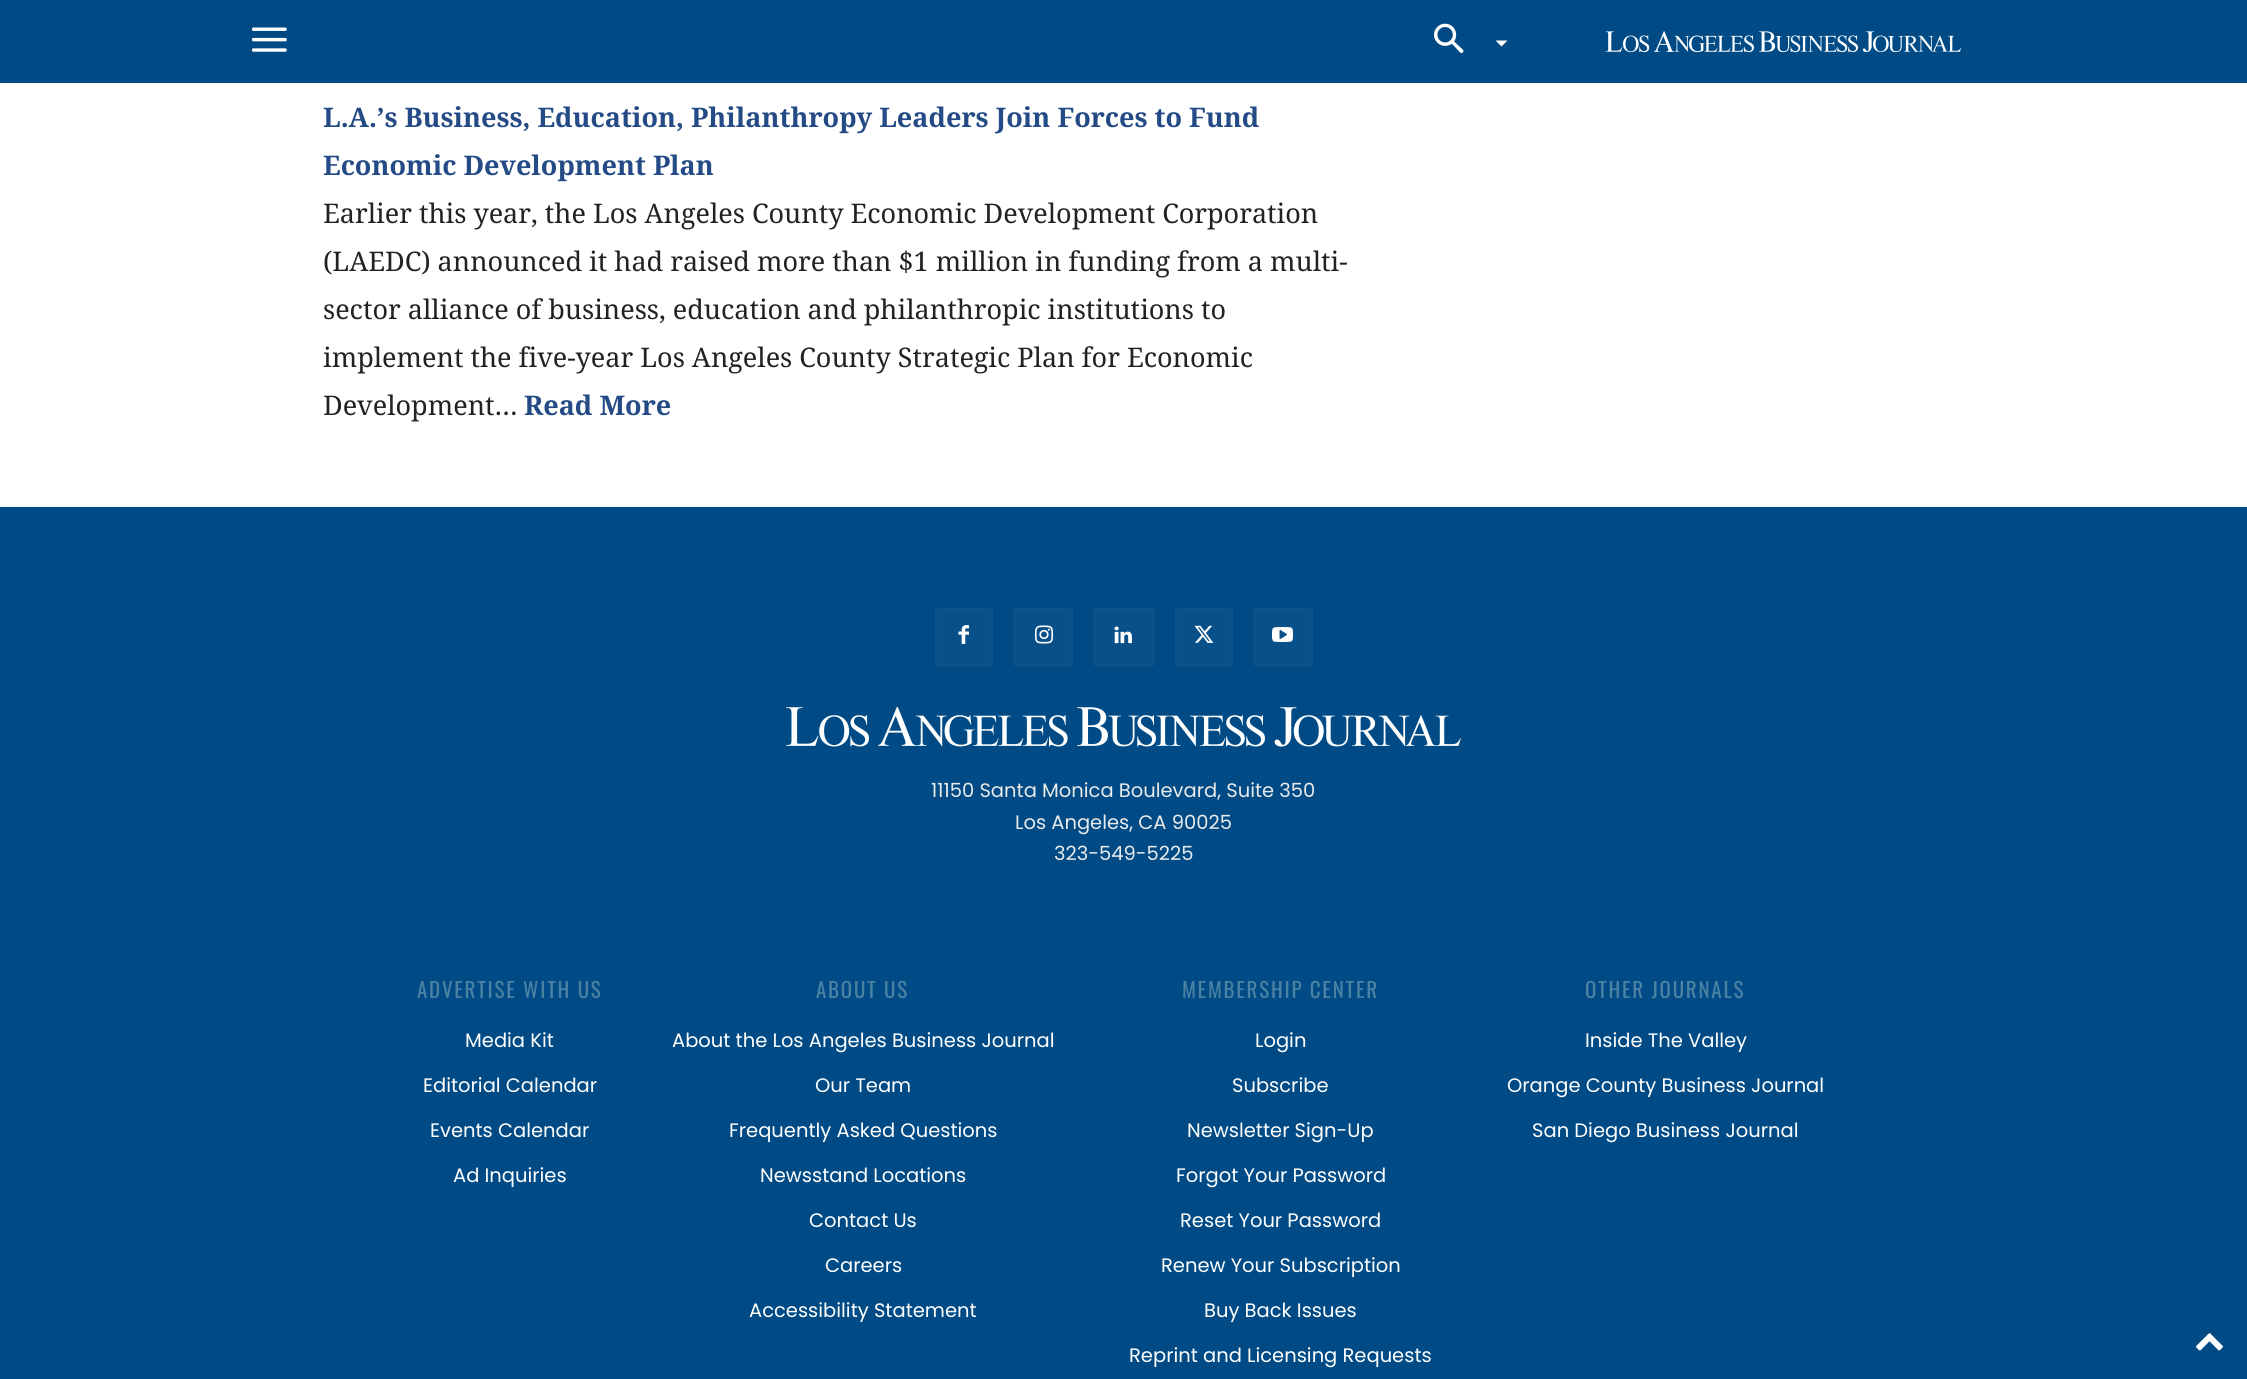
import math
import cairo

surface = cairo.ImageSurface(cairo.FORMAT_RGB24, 2247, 1379)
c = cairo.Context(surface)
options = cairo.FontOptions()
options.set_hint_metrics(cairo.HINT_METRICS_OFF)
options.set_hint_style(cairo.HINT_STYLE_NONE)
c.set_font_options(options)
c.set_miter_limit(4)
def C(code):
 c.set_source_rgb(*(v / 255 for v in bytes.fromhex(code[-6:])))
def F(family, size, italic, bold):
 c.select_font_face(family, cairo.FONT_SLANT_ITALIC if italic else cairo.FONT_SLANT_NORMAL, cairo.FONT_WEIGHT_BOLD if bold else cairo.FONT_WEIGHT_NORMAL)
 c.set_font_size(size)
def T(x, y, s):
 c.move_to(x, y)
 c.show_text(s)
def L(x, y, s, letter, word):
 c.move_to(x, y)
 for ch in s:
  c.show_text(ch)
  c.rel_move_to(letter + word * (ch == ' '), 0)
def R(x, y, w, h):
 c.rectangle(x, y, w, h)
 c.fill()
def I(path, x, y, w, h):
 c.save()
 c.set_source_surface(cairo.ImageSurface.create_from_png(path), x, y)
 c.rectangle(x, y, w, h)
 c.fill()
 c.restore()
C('ffffff')
c.paint()
C('004b85')
R(0,0,2247,83)
I('1.png',252,27,35,25)
I('2.png',1434,23,30,30)
C('ffffff')
c.new_path()
c.move_to(1495.5,40.5)
c.line_to(1507.5,40.5)
c.line_to(1501.5,46.5)
c.close_path()
c.fill()
I('3.png',1605,31,356,22)
F('Noto Serif',27,0,1)
C('244b85')
T(323,127,'L.A.’s Business, Education, Philanthropy Leaders Join Forces to Fund')
T(323,175,'Economic Development Plan')
F('Noto Serif',27,0,0)
C('222222')
T(323,223,'Earlier this year, the Los Angeles County Economic Development Corporation')
T(323,271,'(LAEDC) announced it had raised more than $1 million in funding from a multi-')
T(323,319,'sector alliance of business, education and philanthropic institutions to')
T(323,367,'implement the five-year Los Angeles County Strategic Plan for Economic')
T(323,415,'Development…')
F('Noto Serif',27,0,1)
C('244b85')
T(524,415,'Read More')
C('004b85')
R(0,507,2247,872)
C('085089')
c.rectangle(936,609,56,56)
c.fill_preserve()
C('0e5288')
c.stroke()
I('4.png',958,625,11,19)
C('085089')
c.rectangle(1015,609,57,56)
c.fill_preserve()
C('0e5288')
c.stroke()
I('5.png',1035,625,18,19)
C('085089')
c.rectangle(1095,609,58,56)
c.fill_preserve()
C('0e5288')
c.stroke()
I('6.png',1114,626,18,18)
C('085089')
c.rectangle(1176,609,56,56)
c.fill_preserve()
C('0e5288')
c.stroke()
I('7.png',1194,625,20,18)
C('085089')
c.rectangle(1255,609,57,56)
c.fill_preserve()
C('0e5288')
c.stroke()
I('8.png',1272,627,21,15)
I('9.png',786,707,675,40)
F('Poppins',19.5,0,0)
C('eaeaea')
T(931,797,'11150 Santa Monica Boulevard, Suite 350')
T(1015,829,'Los Angeles, CA 90025')
T(1054,860,'323-549-5225')
F('Oswald',21,0,0)
C('4b82a4')
L(417,998,'ADVERTISE WITH US',1.75,0)
F('Poppins',19.5,0,0)
C('ffffff')
T(465,1047,'Media Kit')
T(423,1092,'Editorial Calendar')
T(430,1137,'Events Calendar')
T(453,1182,'Ad Inquiries')
F('Oswald',21,0,0)
C('4b82a4')
L(816,998,'ABOUT US',1.75,0)
F('Poppins',19.5,0,0)
C('ffffff')
T(672,1047,'About the Los Angeles Business Journal')
T(815,1092,'Our Team')
T(729,1137,'Frequently Asked Questions')
T(760,1182,'Newsstand Locations')
T(809,1227,'Contact Us')
T(825,1272,'Careers')
T(749,1317,'Accessibility Statement')
F('Oswald',21,0,0)
C('4b82a4')
L(1182,998,'MEMBERSHIP CENTER',1.75,0)
F('Poppins',19.5,0,0)
C('ffffff')
T(1255,1047,'Login')
T(1232,1092,'Subscribe')
T(1187,1137,'Newsletter Sign-Up')
T(1176,1182,'Forgot Your Password')
T(1180,1227,'Reset Your Password')
T(1161,1272,'Renew Your Subscription')
T(1204,1317,'Buy Back Issues')
T(1129,1362,'Reprint and Licensing Requests')
F('Oswald',21,0,0)
C('4b82a4')
L(1585,998,'OTHER JOURNALS',1.75,0)
F('Poppins',19.5,0,0)
C('ffffff')
T(1585,1047,'Inside The Valley')
T(1507,1092,'Orange County Business Journal')
T(1532,1137,'San Diego Business Journal')
I('10.png',2196,1333,27,18)
surface.write_to_png('o.png')
